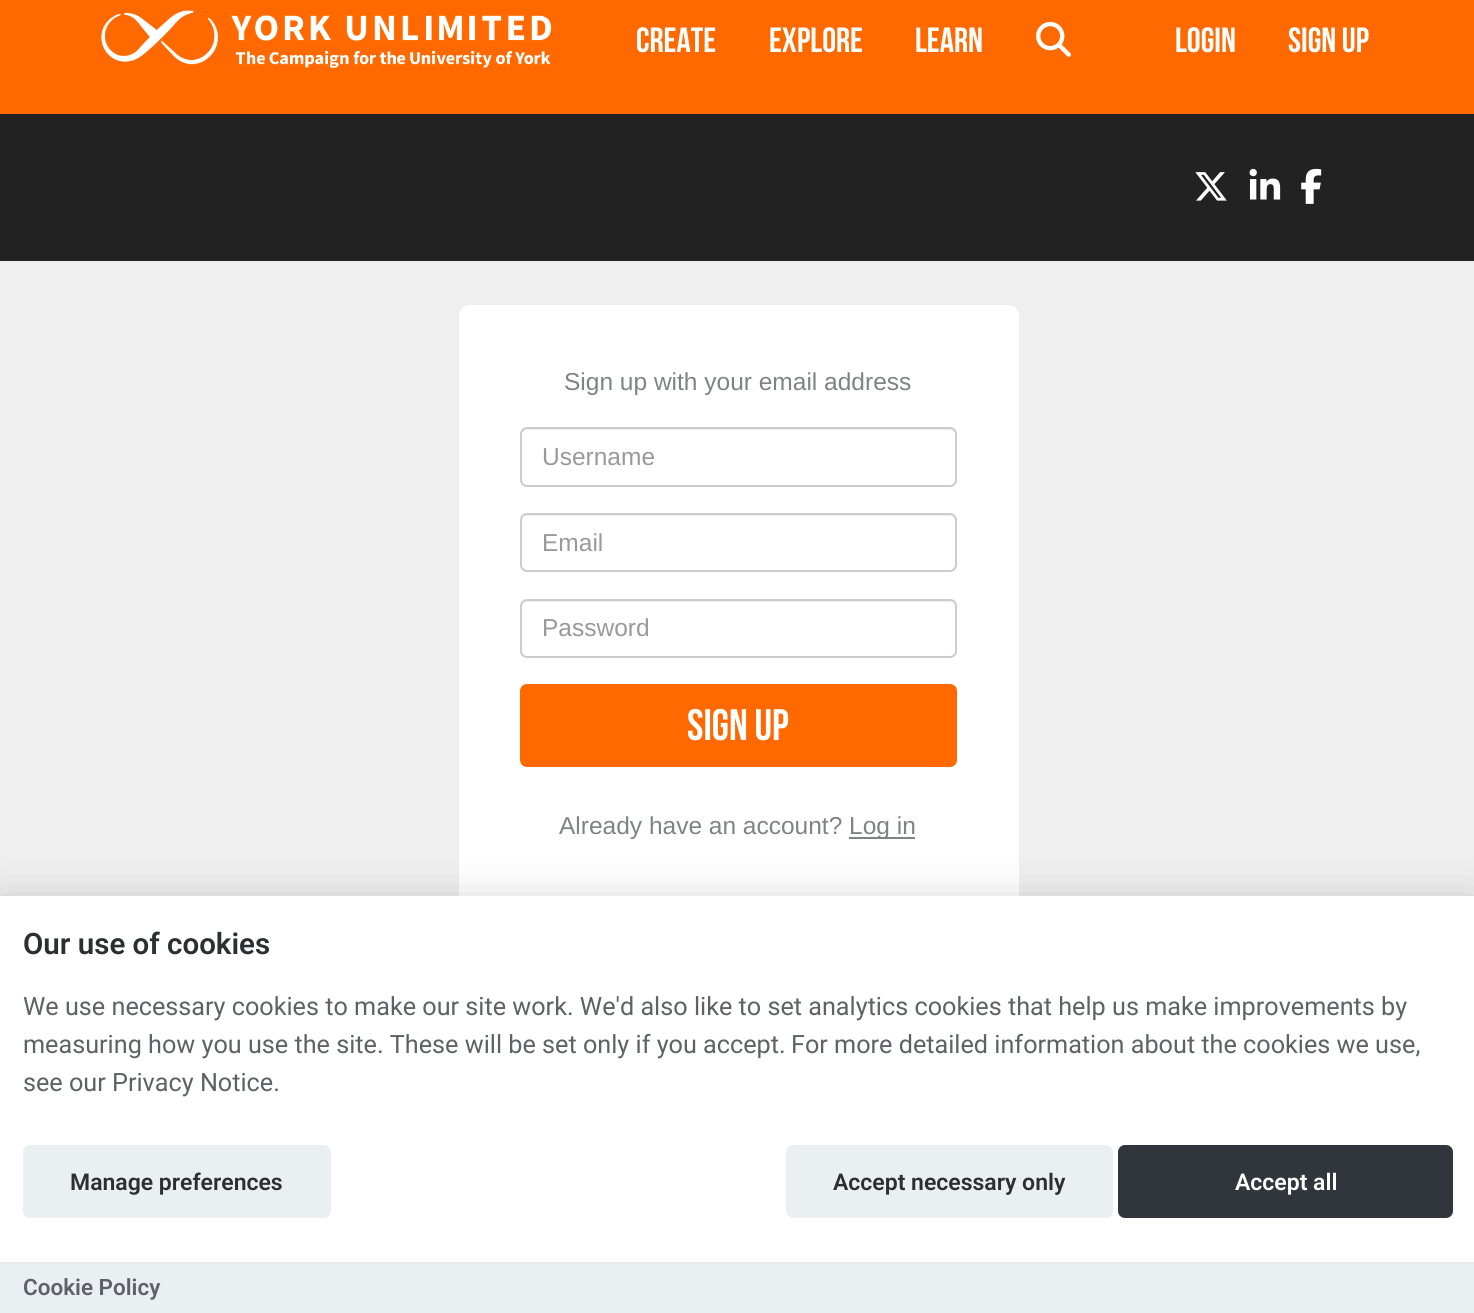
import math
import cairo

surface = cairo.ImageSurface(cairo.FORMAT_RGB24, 1474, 1313)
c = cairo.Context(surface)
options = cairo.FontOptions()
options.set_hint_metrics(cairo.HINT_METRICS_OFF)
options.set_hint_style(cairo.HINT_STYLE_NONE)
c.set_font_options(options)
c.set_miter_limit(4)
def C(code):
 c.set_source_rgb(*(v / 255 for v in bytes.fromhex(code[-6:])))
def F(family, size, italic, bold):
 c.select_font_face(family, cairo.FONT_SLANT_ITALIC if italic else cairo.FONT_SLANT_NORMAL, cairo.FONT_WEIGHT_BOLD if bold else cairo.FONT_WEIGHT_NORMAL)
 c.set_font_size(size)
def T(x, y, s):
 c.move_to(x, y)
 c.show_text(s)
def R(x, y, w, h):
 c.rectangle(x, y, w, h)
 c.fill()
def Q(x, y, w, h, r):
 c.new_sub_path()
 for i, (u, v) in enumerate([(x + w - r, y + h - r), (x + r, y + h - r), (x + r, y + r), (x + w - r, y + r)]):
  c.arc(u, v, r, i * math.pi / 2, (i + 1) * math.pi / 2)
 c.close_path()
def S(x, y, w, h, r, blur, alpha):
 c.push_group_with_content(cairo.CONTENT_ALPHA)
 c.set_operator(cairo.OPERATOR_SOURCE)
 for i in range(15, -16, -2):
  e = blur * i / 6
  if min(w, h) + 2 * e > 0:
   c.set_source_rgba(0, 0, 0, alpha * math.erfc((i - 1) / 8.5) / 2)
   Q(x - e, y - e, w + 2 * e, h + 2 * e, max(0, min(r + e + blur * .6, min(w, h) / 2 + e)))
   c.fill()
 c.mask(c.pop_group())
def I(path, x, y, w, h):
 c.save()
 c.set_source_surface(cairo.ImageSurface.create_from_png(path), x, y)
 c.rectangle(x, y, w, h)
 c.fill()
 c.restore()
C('222222')
c.paint()
C('ff6900')
R(0,0,1474,114)
I('1.png',101,10,451,58)
F('Bebas Neue',35,0,1)
C('ffffff')
T(636,52,'CREATE')
T(769,52,'EXPLORE')
T(915,52,'LEARN')
I('2.png',1036,21,35,36)
T(1175,52,'LOGIN')
T(1288,52,'SIGN UP')
I('3.png',1195,172,32,29)
I('4.png',1249,168,32,32)
I('5.png',1301,168,21,36)
C('efefef')
R(0,261,1474,635)
C('ffffff')
Q(459,305,560,729,11)
c.fill()
F('Liberation Sans',24.5,0,0)
C('808285')
T(564,390,'Sign up with your email address')
C('ececec')
c.new_path()
c.move_to(527,430)
c.line_to(950,430)
c.curve_to(953,430,956,433,956,436)
c.curve_to(956,433,955,429,951,429)
c.line_to(527,429)
c.curve_to(523,429,522,433,522,436)
c.curve_to(522,433,524,430,527,430)
c.close_path()
c.fill()
Q(521,428,435,58,6)
C('cccccc')
c.stroke()
C('999999')
T(542,465,'Username')
C('ececec')
c.new_path()
c.move_to(527,516)
c.line_to(950,516)
c.curve_to(953,516,956,519,956,522)
c.curve_to(956,519,955,515,951,515)
c.line_to(527,515)
c.curve_to(523,515,522,519,522,522)
c.curve_to(522,519,524,516,527,516)
c.close_path()
c.fill()
Q(521,514,435,57,6)
C('cccccc')
c.stroke()
C('999999')
T(542,551,'Email')
C('ececec')
c.new_path()
c.move_to(527,602)
c.line_to(950,602)
c.curve_to(953,602,956,604,956,607)
c.curve_to(956,604,955,600,951,600)
c.line_to(527,600)
c.curve_to(523,600,522,604,522,607)
c.curve_to(522,604,524,602,527,602)
c.close_path()
c.fill()
Q(521,600,435,57,6)
C('cccccc')
c.stroke()
C('999999')
T(542,636,'Password')
C('ff6900')
Q(520,684,437,83,7)
c.fill()
F('Bebas Neue',44,0,1)
C('ffffff')
T(687,740,'Sign up')
F('Liberation Sans',24.5,0,0)
C('808285')
T(559,834,'Already have an account?')
R(849,837,66,2)
T(849,834,'Log in')
C('000002')
S(0,914,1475,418,0,26,.3)
C('ffffff')
R(0,896,1474,366)
F('Roboto SemiBold',29.5,0,0)
C('2c2f31')
T(23,954,'Our use of cookies')
F('Roboto',25.2,0,0)
C('5e6266')
T(23,1015,'We use necessary cookies to make our site work. We\'d also like to set analytics cookies that help us make improvements by')
T(23,1053,'measuring how you use the site. These will be set only if you accept.')
T(791,1053,'For more detailed information about the cookies we use,')
T(23,1091,'see our Privacy Notice.')
C('eaeff2')
Q(24,1146,306,71,6)
c.fill_preserve()
c.stroke()
F('Roboto SemiBold',23,0,0)
C('2c2f31')
T(70,1190,'Manage preferences')
C('eaeff2')
Q(787,1146,325,71,6)
c.fill_preserve()
c.stroke()
C('2c2f31')
T(833,1190,'Accept necessary only')
C('30363c')
Q(1119,1146,333,71,6)
c.fill_preserve()
c.stroke()
C('ffffff')
T(1235,1190,'Accept all')
C('eaeff2')
R(0,1264,1474,49)
C('e4eaed')
R(0,1262,1474,2)
F('Roboto SemiBold',22.5,0,0)
C('5e6266')
T(23,1295,'Cookie Policy')
surface.write_to_png('o.png')
